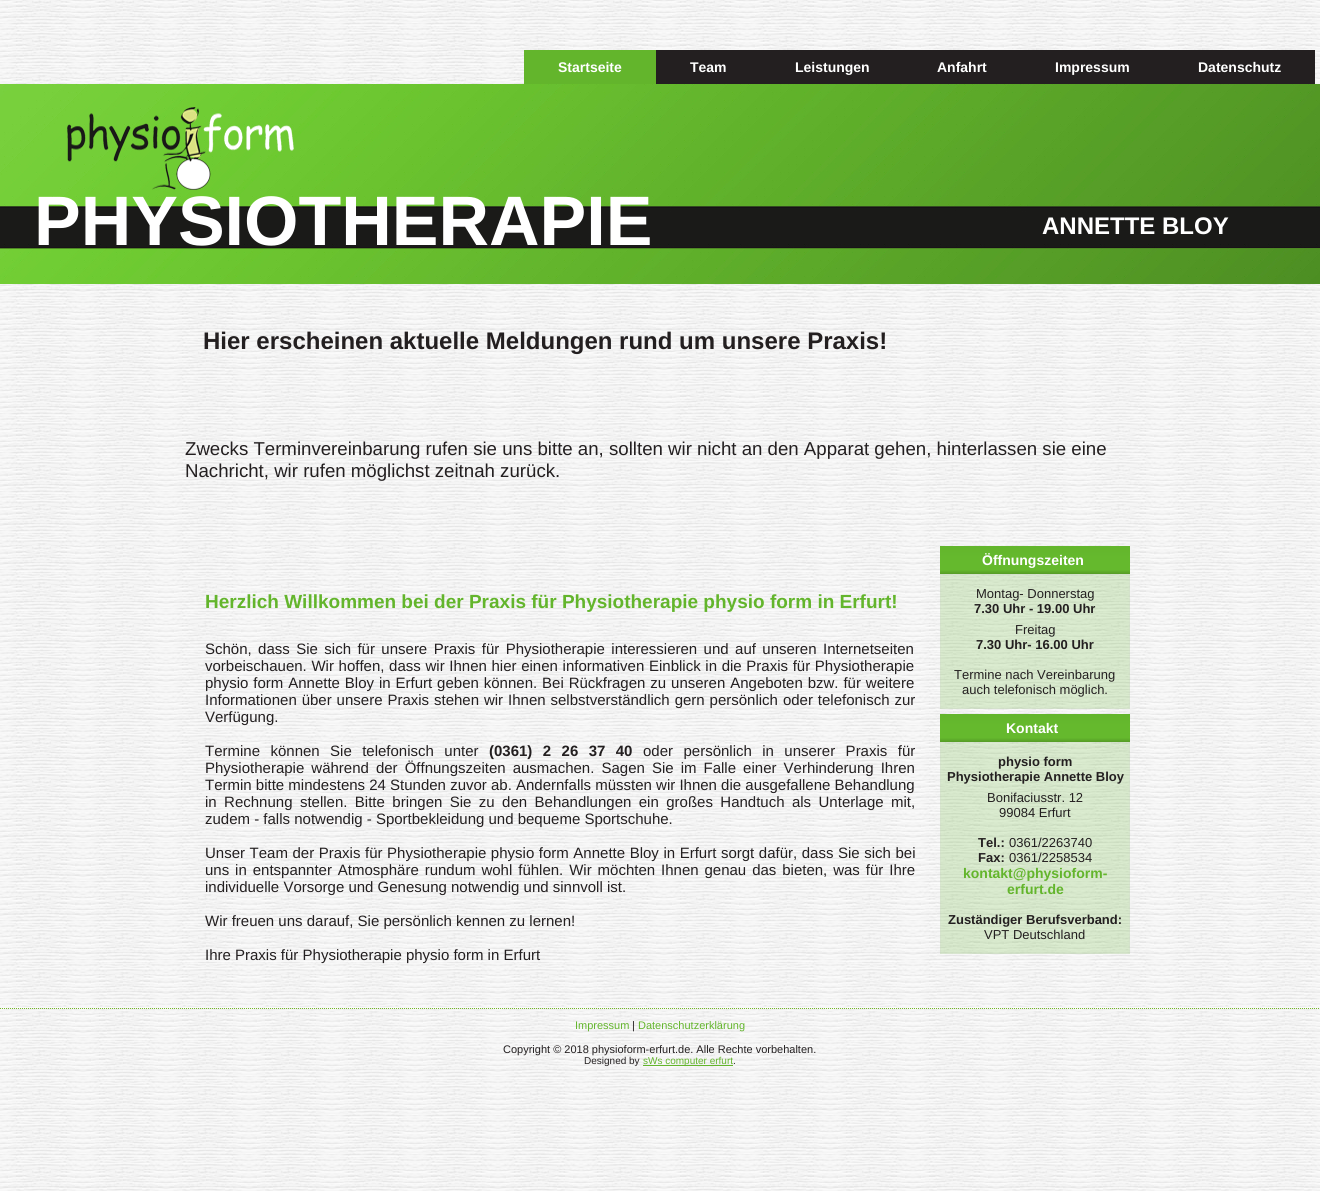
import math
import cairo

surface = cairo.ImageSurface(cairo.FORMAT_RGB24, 1320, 1191)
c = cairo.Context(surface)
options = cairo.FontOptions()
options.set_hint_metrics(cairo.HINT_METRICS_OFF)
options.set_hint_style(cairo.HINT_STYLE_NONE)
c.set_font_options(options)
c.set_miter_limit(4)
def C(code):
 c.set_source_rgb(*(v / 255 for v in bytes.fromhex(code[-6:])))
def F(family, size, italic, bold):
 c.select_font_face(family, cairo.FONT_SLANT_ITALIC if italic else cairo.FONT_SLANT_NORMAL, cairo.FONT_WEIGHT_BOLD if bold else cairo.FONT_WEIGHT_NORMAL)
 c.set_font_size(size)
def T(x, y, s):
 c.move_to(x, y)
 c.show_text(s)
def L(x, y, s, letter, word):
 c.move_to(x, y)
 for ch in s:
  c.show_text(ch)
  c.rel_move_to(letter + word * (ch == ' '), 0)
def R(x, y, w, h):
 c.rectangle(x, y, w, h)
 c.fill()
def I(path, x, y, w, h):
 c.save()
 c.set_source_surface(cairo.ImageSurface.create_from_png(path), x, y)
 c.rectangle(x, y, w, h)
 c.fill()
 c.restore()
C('ffffff')
c.paint()
I('1.png',0,0,1320,1191)
C('63b52c')
R(524,50,132,34)
F('Liberation Sans',14,0,1)
C('ffffff')
T(558,72,'Startseite')
C('231f20')
R(656,50,659,34)
C('ffffff')
T(690,72,'Team')
T(795,72,'Leistungen')
T(937,72,'Anfahrt')
T(1055,72,'Impressum')
T(1198,72,'Datenschutz')
I('2.png',0,84,1320,200)
I('3.png',67,107,227,83)
F('Liberation Sans',70,0,1)
T(34,245,'PHYSIOTHERAPIE')
F('Liberation Sans',24,0,1)
T(1042,234,'ANNETTE BLOY')
C('231f20')
T(203,349,'Hier erscheinen aktuelle Meldungen rund um unsere Praxis!')
F('Liberation Sans',18.65,0,0)
T(185,455,'Zwecks Terminvereinbarung rufen sie uns bitte an, sollten wir nicht an den Apparat gehen, hinterlassen sie eine')
T(185,477,'Nachricht, wir rufen möglichst zeitnah zurück.')
F('Liberation Sans',19,0,1)
C('63b52c')
T(205,608,'Herzlich Willkommen bei der Praxis für Physiotherapie physio form in Erfurt!')
F('Liberation Sans',15,0,0)
C('231f20')
L(205,654,'Schön, dass Sie sich für unsere Praxis für Physiotherapie interessieren und auf unseren Internetseiten',0,2.25)
L(205,671,'vorbeischauen. Wir hoffen, dass wir Ihnen hier einen informativen Einblick in die Praxis für Physiotherapie',0,.5)
L(205,688,'physio form Annette Bloy in Erfurt geben können. Bei Rückfragen zu unseren Angeboten bzw. für weitere',0,.75)
L(205,705,'Informationen über unsere Praxis stehen wir Ihnen selbstverständlich gern persönlich oder telefonisch zur',0,.75)
T(205,722,'Verfügung.')
L(205,756,'Termine können Sie telefonisch unter',0,6.25)
F('Liberation Sans',15,0,1)
L(489,756,'(0361) 2 26 37 40',0,6.25)
F('Liberation Sans',15,0,0)
L(643,756,'oder persönlich in unserer Praxis für',0,6.25)
L(205,773,'Physiotherapie während der Öffnungszeiten ausmachen. Sagen Sie im Falle einer Verhinderung Ihren',0,2.9)
T(205,790,'Termin bitte mindestens 24 Stunden zuvor ab. Andernfalls müssten wir Ihnen die ausgefallene Behandlung')
L(205,807,'in Rechnung stellen. Bitte bringen Sie zu den Behandlungen ein großes Handtuch als Unterlage mit,',0,3.25)
T(205,824,'zudem - falls notwendig - Sportbekleidung und bequeme Sportschuhe.')
L(205,858,'Unser Team der Praxis für Physiotherapie physio form Annette Bloy in Erfurt sorgt dafür, dass Sie sich bei',0,.4)
L(205,875,'uns in entspannter Atmosphäre rundum wohl fühlen. Wir möchten Ihnen genau das bieten, was für Ihre',0,1.75)
T(205,892,'individuelle Vorsorge und Genesung notwendig und sinnvoll ist.')
T(205,926,'Wir freuen uns darauf, Sie persönlich kennen zu lernen!')
T(205,960,'Ihre Praxis für Physiotherapie physio form in Erfurt')
gradient = cairo.LinearGradient(1035,546,1035,574)
gradient.add_color_stop_rgba(0,0.388,0.71,0.173,1)
gradient.add_color_stop_rgba(.4,0.396,0.725,0.176,1)
gradient.add_color_stop_rgba(.85,0.396,0.725,0.176,1)
gradient.add_color_stop_rgba(1,0.333,0.612,0.149,1)
c.set_source(gradient)
R(940,546,190,28)
F('Liberation Sans',14,0,1)
C('ffffff')
T(982,565,'Öffnungszeiten')
c.set_source_rgba(0.388,0.71,0.173,0.2)
R(940,574,190,135)
c.rectangle(940.5,574.5,189,134)
c.set_source_rgba(0.831,0.831,0.831,0.2)
c.set_line_width(1)
c.stroke()
F('Liberation Sans',13,0,0)
C('231f20')
T(976,598,'Montag- Donnerstag')
F('Liberation Sans',13,0,1)
T(974,613,'7.30 Uhr - 19.00 Uhr')
F('Liberation Sans',13,0,0)
T(1015,634,'Freitag')
F('Liberation Sans',13,0,1)
T(976,649,'7.30 Uhr- 16.00 Uhr')
F('Liberation Sans',13,0,0)
T(954,679,'Termine nach Vereinbarung')
T(962,694,'auch telefonisch möglich.')
gradient = cairo.LinearGradient(1035,714,1035,742)
gradient.add_color_stop_rgba(0,0.388,0.71,0.173,1)
gradient.add_color_stop_rgba(.4,0.396,0.725,0.176,1)
gradient.add_color_stop_rgba(.85,0.396,0.725,0.176,1)
gradient.add_color_stop_rgba(1,0.333,0.612,0.149,1)
c.set_source(gradient)
R(940,714,190,28)
F('Liberation Sans',14,0,1)
C('ffffff')
T(1006,733,'Kontakt')
c.set_source_rgba(0.388,0.71,0.173,0.2)
R(940,742,190,212)
c.rectangle(940.5,742.5,189,211)
c.set_source_rgba(0.831,0.831,0.831,0.2)
c.stroke()
F('Liberation Sans',13,0,1)
C('231f20')
T(998,766,'physio form')
T(947,781,'Physiotherapie Annette Bloy')
F('Liberation Sans',13,0,0)
T(987,802,'Bonifaciusstr. 12')
T(999,817,'99084 Erfurt')
F('Liberation Sans',13,0,1)
T(978,847,'Tel.:')
F('Liberation Sans',13,0,0)
T(1009,847,'0361/2263740')
F('Liberation Sans',13,0,1)
T(978,862,'Fax:')
F('Liberation Sans',13,0,0)
T(1009,862,'0361/2258534')
F('Liberation Sans',14,0,1)
C('63b52c')
T(963,878,'kontakt@physioform-')
T(1007,894,'erfurt.de')
F('Liberation Sans',13,0,1)
C('231f20')
T(948,924,'Zuständiger Berufsverband:')
F('Liberation Sans',13,0,0)
T(984,939,'VPT Deutschland')
c.new_path()
c.move_to(0,1008.5)
c.line_to(1320,1008.5)
C('75b927')
c.set_dash([1,1])
c.stroke()
F('Liberation Sans',11,0,0)
C('63b52c')
T(575,1029,'Impressum')
C('231f20')
T(632,1029,'|')
C('63b52c')
T(638,1029,'Datenschutzerklärung')
C('231f20')
T(503,1053,'Copyright © 2018 physioform-erfurt.de. Alle Rechte vorbehalten.')
F('Liberation Sans',10,0,0)
T(584,1064,'Designed by')
C('63b52c')
R(643,1065,90,1)
T(643,1064,'sWs computer erfurt')
C('231f20')
T(733,1064,'.')
surface.write_to_png('o.png')
